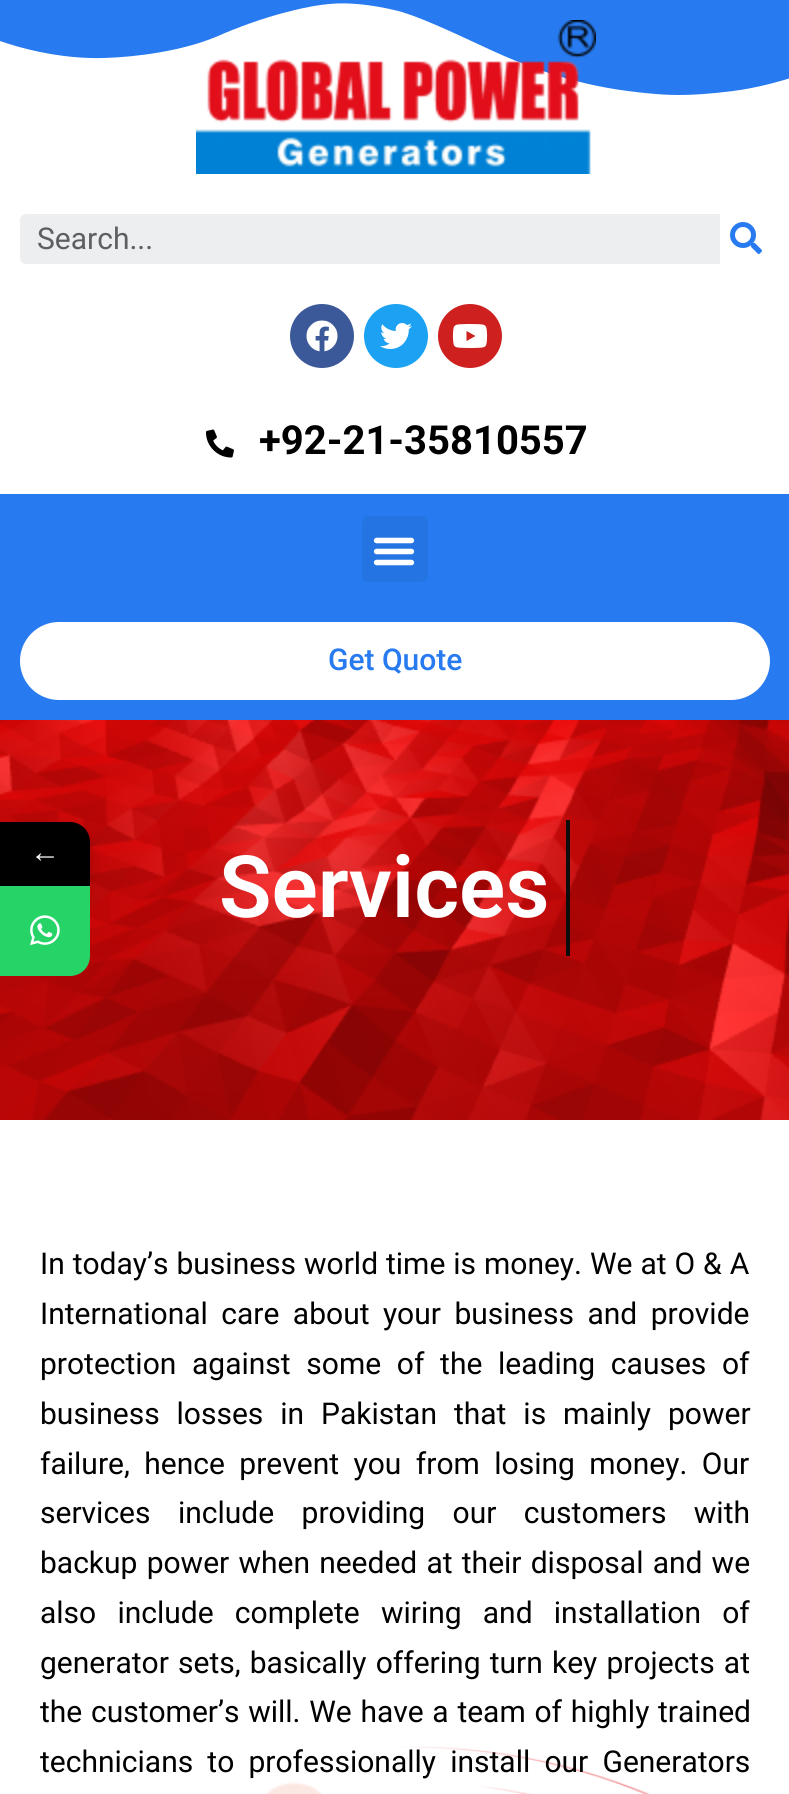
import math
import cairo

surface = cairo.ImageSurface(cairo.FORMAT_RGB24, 789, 1794)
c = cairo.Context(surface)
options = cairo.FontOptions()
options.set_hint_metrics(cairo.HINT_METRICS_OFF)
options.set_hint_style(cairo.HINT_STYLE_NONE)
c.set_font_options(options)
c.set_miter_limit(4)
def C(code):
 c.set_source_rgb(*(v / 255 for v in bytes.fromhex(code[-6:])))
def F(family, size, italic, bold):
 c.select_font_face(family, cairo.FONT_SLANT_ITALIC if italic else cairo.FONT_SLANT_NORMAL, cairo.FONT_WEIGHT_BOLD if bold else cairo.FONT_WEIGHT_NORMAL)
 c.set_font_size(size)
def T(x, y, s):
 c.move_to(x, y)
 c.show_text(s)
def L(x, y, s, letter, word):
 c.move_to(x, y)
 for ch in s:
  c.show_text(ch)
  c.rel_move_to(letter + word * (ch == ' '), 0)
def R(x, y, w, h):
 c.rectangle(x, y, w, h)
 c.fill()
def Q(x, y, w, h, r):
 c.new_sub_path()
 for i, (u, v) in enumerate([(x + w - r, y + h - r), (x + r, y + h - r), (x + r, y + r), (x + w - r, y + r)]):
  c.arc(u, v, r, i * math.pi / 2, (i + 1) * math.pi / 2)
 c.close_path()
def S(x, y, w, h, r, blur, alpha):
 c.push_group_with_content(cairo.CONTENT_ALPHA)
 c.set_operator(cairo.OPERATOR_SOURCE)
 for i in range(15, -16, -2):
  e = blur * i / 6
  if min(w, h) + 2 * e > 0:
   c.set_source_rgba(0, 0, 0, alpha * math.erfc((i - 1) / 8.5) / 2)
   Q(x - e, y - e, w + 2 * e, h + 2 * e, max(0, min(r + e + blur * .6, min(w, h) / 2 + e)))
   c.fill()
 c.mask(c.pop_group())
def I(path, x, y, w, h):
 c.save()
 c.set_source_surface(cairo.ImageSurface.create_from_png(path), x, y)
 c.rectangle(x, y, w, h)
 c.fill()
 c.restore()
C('ffffff')
c.paint()
C('277aef')
c.new_path()
c.move_to(329,4)
c.curve_to(349,2,373,5,394,10)
c.curve_to(414,14,454,33,480,45)
c.curve_to(545,76,594,88,645,93)
c.curve_to(665,95,686,97,733,91)
c.curve_to(780,85,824,66,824,66)
c.line_to(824,-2)
c.line_to(-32,-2)
c.line_to(-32,28)
c.curve_to(-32,28,30,60,104,58)
c.curve_to(137,57,183,51,218,36)
c.curve_to(236,28,263,18,287,12)
c.curve_to(310,6,320,5,329,4)
c.close_path()
c.fill()
I('1.png',196,20,400,154)
C('eceeef')
Q(20,214,750,50,6)
c.fill()
F('Roboto',30,0,0)
C('5e5f60')
T(37,249,'Search...')
C('ffffff')
c.new_path()
c.move_to(720,214)
c.line_to(764,214)
c.curve_to(767.5,214,770,216.5,770,220)
c.line_to(770,258)
c.curve_to(770,261.5,767.5,264,764,264)
c.line_to(720,264)
c.close_path()
c.fill()
I('2.png',730,222,32,32)
C('3b5998')
c.arc(322,336,32,0,2 * math.pi)
c.fill()
I('3.png',306,320,32,32)
C('1da1f2')
c.arc(396,336,32,0,2 * math.pi)
c.fill()
I('4.png',380,323,32,26)
C('cd201f')
c.arc(470,336,32,0,2 * math.pi)
c.fill()
I('5.png',452,324,36,24)
I('6.png',206,429,28,29)
F('Roboto',40,0,1)
C('000000')
T(259,454,'+92-21-35810557')
C('277aef')
R(0,494,789,226)
C('2574e3')
Q(362,516,66,66,6)
c.fill()
I('7.png',373,537,42,29)
C('ffffff')
Q(20,622,750,78,39)
c.fill()
F('Roboto Medium',30,0,0)
C('277aef')
T(328,670,'Get Quote')
I('9.png',0,720,789,400)
C('000000')
S(0,828,90,64,20,6,.16)
C('000000')
c.new_path()
c.move_to(0,822)
c.line_to(70,822)
c.curve_to(81,822,90,831,90,842)
c.line_to(90,886)
c.line_to(0,886)
c.close_path()
c.fill()
F('Liberation Serif',30,0,0)
C('ffffff')
T(30,862,'←')
C('26d367')
c.new_path()
c.move_to(0,886)
c.line_to(90,886)
c.line_to(90,956)
c.curve_to(90,967,81,976,70,976)
c.line_to(0,976)
c.close_path()
c.fill()
I('8.png',30,915,30,31)
F('Roboto SemiBold',86,0,0)
C('ffffff')
T(219,917,'Services')
C('0d0d0d')
R(566,820,4,136)
F('Roboto',30,0,0)
C('000000')
L(40,1274,'In today’s business world time is money. We at O & A',0,.5)
L(40,1324,'International care about your business and provide',0,6)
L(40,1374,'protection against some of the leading causes of',0,8.25)
L(40,1424,'business losses in Pakistan that is mainly power',0,9.5)
L(40,1474,'failure, hence prevent you from losing money. Our',0,7)
L(40,1523,'services include providing our customers with',0,20)
L(40,1573,'backup power when needed at their disposal and we',0,1.75)
L(40,1623,'also include complete wiring and installation of',0,13.75)
L(40,1673,'generator sets, basically offering turn key projects at',0,1.75)
L(40,1722,'the customer’s will. We have a team of highly trained',0,1.25)
I('11.png',399,1746,251,48)
L(40,1772,'technicians to professionally install our Generators',0,6.75)
I('10.png',266,1782,56,12)
surface.write_to_png('o.png')
